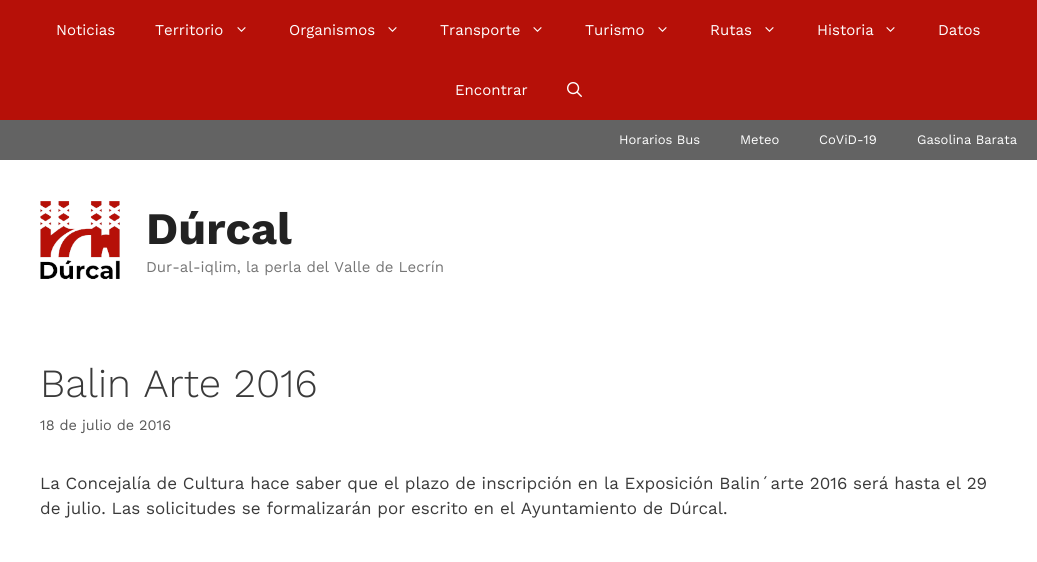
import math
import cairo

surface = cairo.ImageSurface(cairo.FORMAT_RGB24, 1037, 562)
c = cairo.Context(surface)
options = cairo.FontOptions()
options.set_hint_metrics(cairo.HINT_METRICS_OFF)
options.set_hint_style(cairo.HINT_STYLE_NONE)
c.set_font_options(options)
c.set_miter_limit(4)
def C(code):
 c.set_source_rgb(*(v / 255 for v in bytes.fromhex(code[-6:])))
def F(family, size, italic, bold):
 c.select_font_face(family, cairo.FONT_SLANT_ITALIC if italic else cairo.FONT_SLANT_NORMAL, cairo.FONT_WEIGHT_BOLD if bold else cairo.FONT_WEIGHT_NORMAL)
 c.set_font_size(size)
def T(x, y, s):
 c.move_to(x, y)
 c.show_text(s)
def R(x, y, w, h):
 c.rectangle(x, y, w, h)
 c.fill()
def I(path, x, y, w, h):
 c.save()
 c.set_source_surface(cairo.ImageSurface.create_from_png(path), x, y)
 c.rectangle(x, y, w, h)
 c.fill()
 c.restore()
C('ffffff')
c.paint()
C('b61008')
R(0,0,1037,120)
F('Work Sans',15,0,0)
C('ffffff')
T(56,35,'Noticias')
T(155,35,'Territorio')
I('1.png',237,27,9,5)
T(289,35,'Organismos')
I('1.png',388,27,9,5)
T(440,35,'Transporte')
I('1.png',533,27,9,5)
T(585,35,'Turismo')
I('1.png',658,27,9,5)
T(710,35,'Rutas')
I('1.png',765,27,9,5)
T(817,35,'Historia')
I('1.png',886,27,9,5)
T(938,35,'Datos')
T(455,95,'Encontrar')
I('2.png',567,82,15,15)
C('636363')
R(0,120,1037,40)
F('Work Sans',13,0,0)
C('ffffff')
T(619,144,'Horarios Bus')
T(740,144,'Meteo')
T(819,144,'CoViD-19')
T(917,144,'Gasolina Barata')
I('3.png',40,201,80,79)
F('Work Sans',45,0,1)
C('222222')
T(146,244,'Dúrcal')
F('Work Sans',15,0,0)
C('757575')
T(146,272,'Dur-al-iqlim, la perla del Valle de Lecrín')
F('Work Sans Light',40,0,0)
C('3a3a3a')
T(40,397,'Balin Arte 2016')
F('Work Sans',14.5,0,0)
C('595959')
T(40,430,'18 de julio de 2016')
F('Work Sans',17,0,0)
C('3a3a3a')
T(40,489,'La Concejalía de Cultura hace saber que el plazo de inscripción en la Exposición Balin´arte 2016 será hasta el 29')
T(40,514,'de julio. Las solicitudes se formalizarán por escrito en el Ayuntamiento de Dúrcal.')
surface.write_to_png('o.png')
